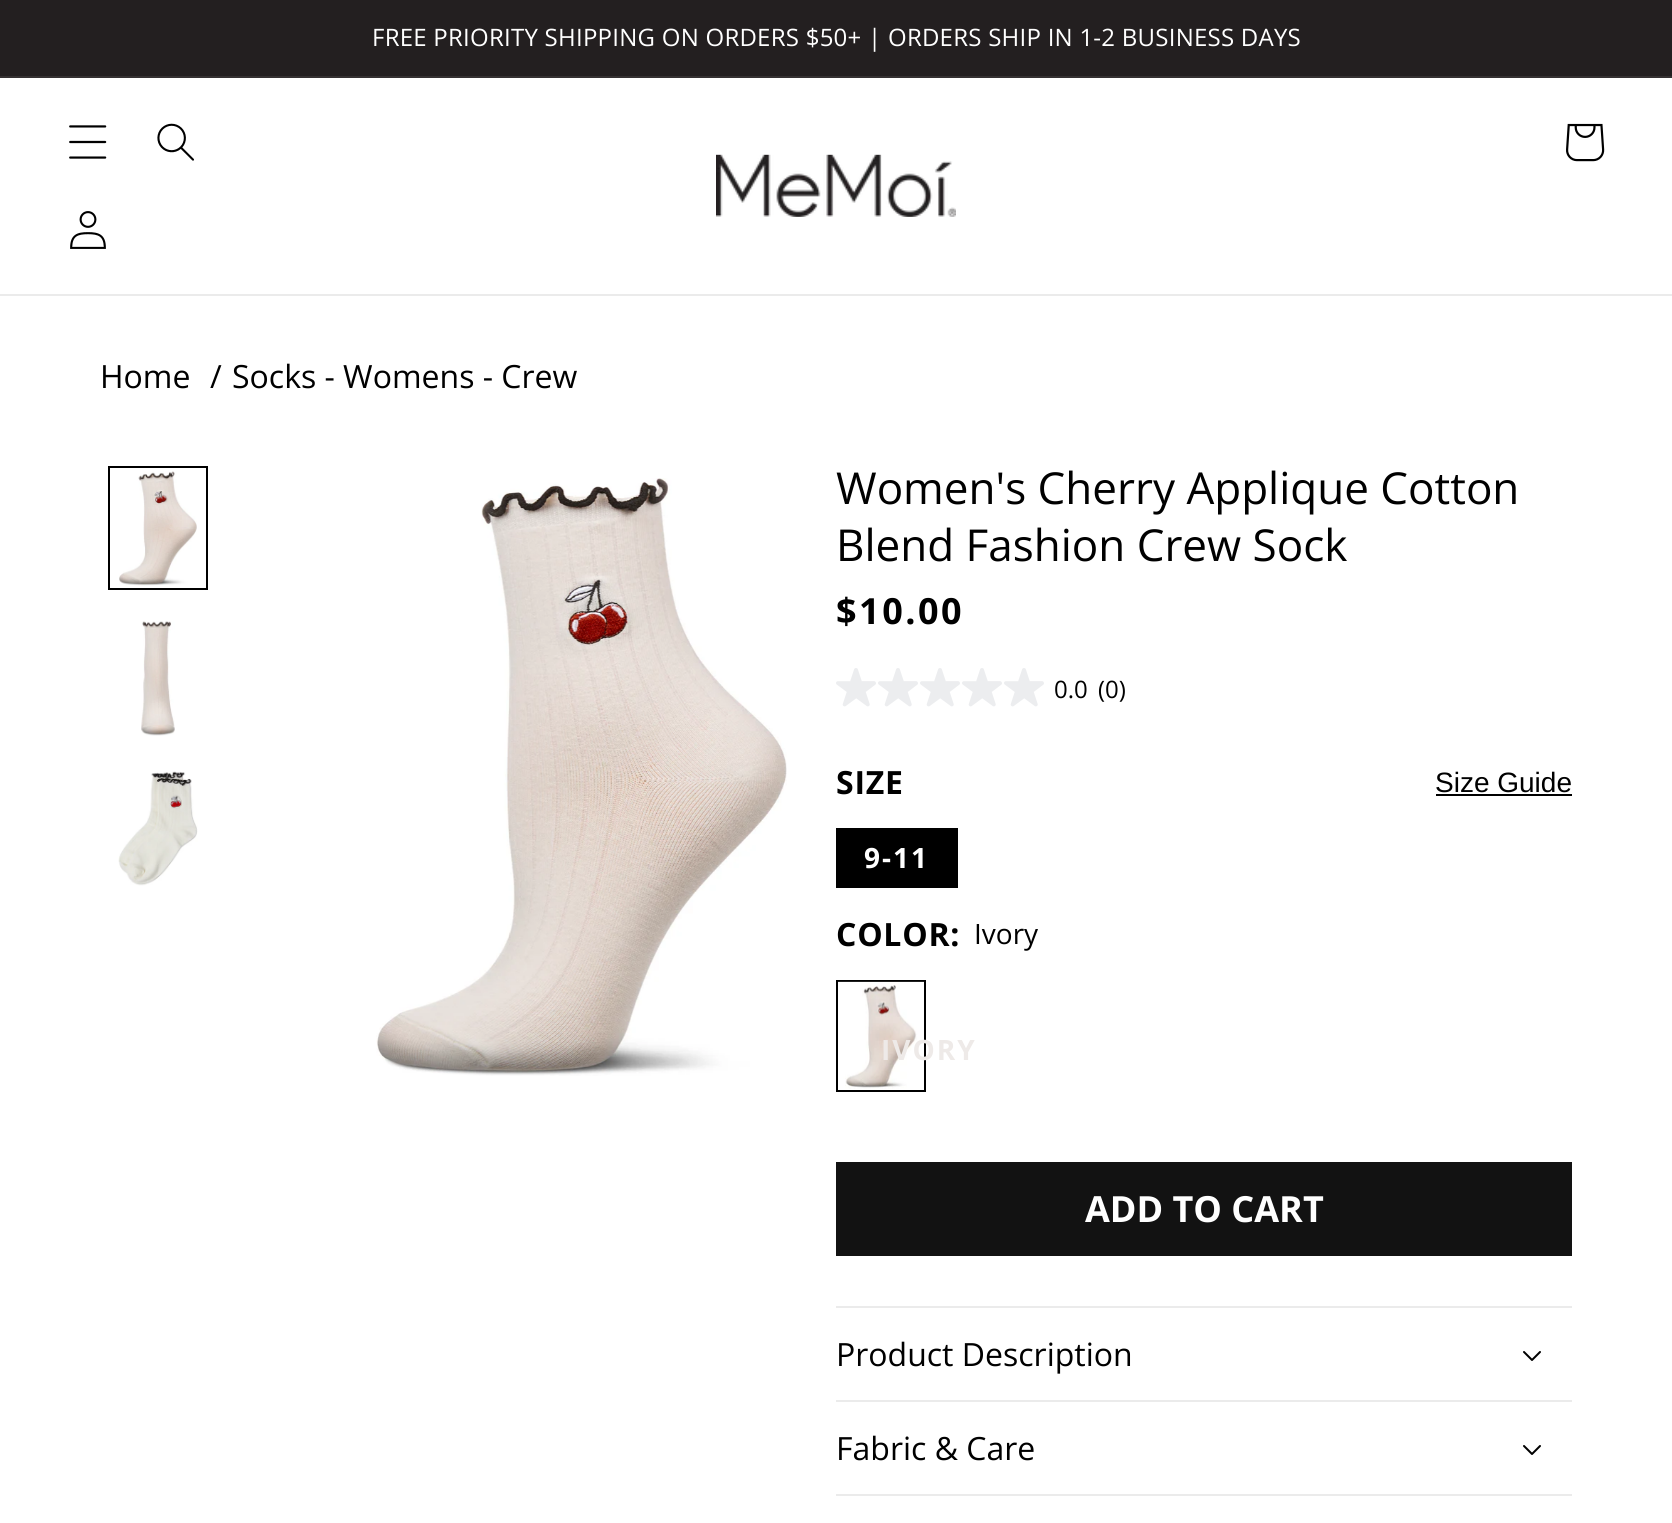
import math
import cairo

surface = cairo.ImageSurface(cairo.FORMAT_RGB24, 1672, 1523)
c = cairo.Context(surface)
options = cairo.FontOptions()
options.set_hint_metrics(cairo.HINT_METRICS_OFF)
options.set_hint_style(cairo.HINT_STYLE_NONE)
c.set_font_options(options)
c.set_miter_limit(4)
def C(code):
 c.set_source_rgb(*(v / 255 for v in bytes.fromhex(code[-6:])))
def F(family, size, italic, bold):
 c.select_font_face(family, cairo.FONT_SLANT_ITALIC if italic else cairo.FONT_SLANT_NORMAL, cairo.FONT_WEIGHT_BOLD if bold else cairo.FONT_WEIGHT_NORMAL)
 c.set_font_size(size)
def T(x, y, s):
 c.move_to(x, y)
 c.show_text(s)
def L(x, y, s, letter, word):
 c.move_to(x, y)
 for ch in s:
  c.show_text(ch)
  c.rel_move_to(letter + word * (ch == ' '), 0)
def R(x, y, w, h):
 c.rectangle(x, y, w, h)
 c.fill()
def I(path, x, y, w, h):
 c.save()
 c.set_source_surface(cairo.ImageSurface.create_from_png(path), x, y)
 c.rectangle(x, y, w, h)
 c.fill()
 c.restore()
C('ffffff')
c.paint()
C('231f20')
R(0,0,1672,76)
C('353132')
R(0,76,1672,2)
F('Open Sans',24,0,0)
C('ffffff')
L(372,46,'FREE PRIORITY SHIPPING ON ORDERS $50+ | ORDERS SHIP IN 1-2 BUSINESS DAYS',.25,0)
C('ebebeb')
R(0,294,1672,2)
I('1.png',69,125,38,34)
I('2.png',157,123,37,38)
I('3.png',1566,123,39,39)
I('4.png',716,154,240,63)
I('5.png',70,211,36,38)
F('Open Sans',32,0,0)
C('000000')
T(100,388,'Home')
T(210,388,'/')
T(232,388,'Socks - Womens - Crew')
c.rectangle(109,467,98,122)
c.stroke()
I('6.png',119,471,78,115)
I('7.png',141,621,34,115)
I('8.png',118,771,80,115)
I('9.png',376,478,411,598)
F('Open Sans',44,0,0)
T(836,504,'Women\'s Cherry Applique Cotton')
T(836,561,'Blend Fashion Crew Sock')
F('Open Sans',36,0,1)
L(836,624,'$10.00',2.5,0)
I('10.png',836,668,40,39)
I('10.png',878,668,40,39)
I('10.png',920,668,40,39)
I('10.png',962,668,40,39)
I('10.png',1004,668,40,39)
F('Open Sans',24,0,0)
T(1054,698,'0.0')
T(1098,698,'(0)')
F('Open Sans',32,0,1)
L(836,794,'SIZE',.75,0)
F('Liberation Sans',28,0,0)
T(1435,792,'Size Guide')
R(1436,794,136,2)
R(836,828,122,60)
F('Open Sans',28,0,1)
C('ffffff')
L(864,868,'9-11',2,0)
F('Open Sans',32,0,1)
C('000000')
L(836,946,'COLOR:',.75,0)
F('Open Sans',28,0,0)
T(974,944,'Ivory')
c.rectangle(837,981,88,110)
c.stroke()
I('11.png',838,981,86,108)
F('Open Sans',28,0,1)
C('eeeae8')
L(881,1060,'IVORY',2,0)
C('121212')
R(836,1162,736,94)
F('Open Sans',36,0,1)
C('ffffff')
T(1085,1222,'ADD TO CART')
C('ebebeb')
R(836,1306,736,2)
R(836,1400,736,2)
F('Open Sans',32,0,0)
C('000000')
T(836,1366,'Product Description')
I('12.png',1523,1351,18,10)
C('ebebeb')
R(836,1494,736,2)
C('000000')
T(836,1460,'Fabric & Care')
I('12.png',1523,1445,18,10)
surface.write_to_png('o.png')
